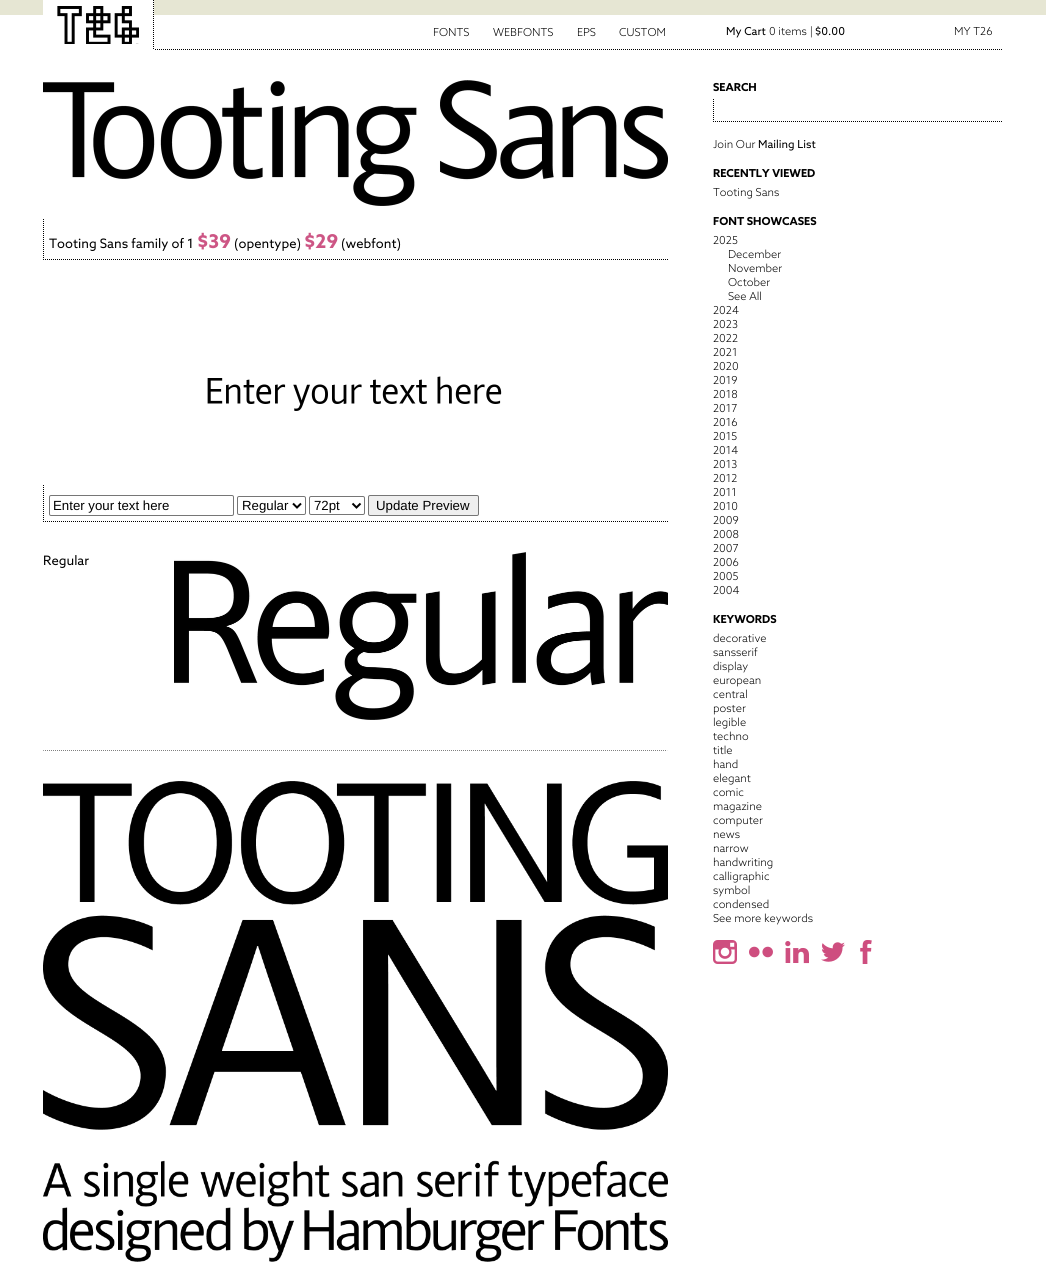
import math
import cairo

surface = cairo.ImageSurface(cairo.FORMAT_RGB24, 1046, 1266)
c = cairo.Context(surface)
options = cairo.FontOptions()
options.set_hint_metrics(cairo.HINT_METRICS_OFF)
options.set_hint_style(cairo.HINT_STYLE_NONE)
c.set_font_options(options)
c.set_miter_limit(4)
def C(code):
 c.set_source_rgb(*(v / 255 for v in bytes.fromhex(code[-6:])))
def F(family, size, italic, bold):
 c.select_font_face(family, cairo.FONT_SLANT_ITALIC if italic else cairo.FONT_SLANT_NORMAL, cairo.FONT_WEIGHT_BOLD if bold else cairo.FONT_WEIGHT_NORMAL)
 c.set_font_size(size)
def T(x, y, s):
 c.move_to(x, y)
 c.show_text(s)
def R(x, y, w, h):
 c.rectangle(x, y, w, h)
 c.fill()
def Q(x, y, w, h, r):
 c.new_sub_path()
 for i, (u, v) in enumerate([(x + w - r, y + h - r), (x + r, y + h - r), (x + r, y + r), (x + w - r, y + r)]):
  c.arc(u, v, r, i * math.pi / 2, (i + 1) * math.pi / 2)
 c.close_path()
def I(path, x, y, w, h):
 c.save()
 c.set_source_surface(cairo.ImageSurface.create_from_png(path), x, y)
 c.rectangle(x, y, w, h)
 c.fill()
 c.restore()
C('ffffff')
c.paint()
C('e6e6d3')
R(0,0,1046,15)
c.new_path()
c.move_to(43,49.5)
c.line_to(1003,49.5)
C('000000')
c.set_line_width(1)
c.set_dash([1,1])
c.stroke()
C('ffffff')
R(43,0,111,50)
I('1.png',57,6,82,38)
c.new_path()
c.move_to(153.5,0)
c.line_to(153.5,50)
C('000000')
c.stroke()
F('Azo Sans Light',11,0,0)
T(433,36,'FONTS')
T(493,36,'WEBFONTS')
T(577,36,'EPS')
T(619,36,'CUSTOM')
F('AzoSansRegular',11,0,0)
T(726,35,'My Cart')
F('Azo Sans Light',11,0,0)
T(769,35,'0 items |')
F('AzoSansRegular',11,0,0)
T(815,35,'$0.00')
F('Azo Sans Light',11,0,0)
T(954,35,'MY T26')
I('2.png',43,80,625,126)
c.new_path()
c.move_to(43,259.5)
c.line_to(668,259.5)
c.stroke()
c.new_path()
c.move_to(43.5,219)
c.line_to(43.5,260)
c.stroke()
F('AzoSansRegular',13,0,0)
T(49,248,'Tooting Sans family of 1')
F('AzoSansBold',19,0,1)
C('cd5685')
T(197,248,'$39')
F('AzoSansRegular',13,0,0)
C('000000')
T(234,248,'(opentype)')
F('AzoSansBold',19,0,1)
C('cd5685')
T(304,248,'$29')
F('AzoSansRegular',13,0,0)
C('000000')
T(341,248,'(webfont)')
I('3.png',207,376,295,35)
c.new_path()
c.move_to(43,521.5)
c.line_to(668,521.5)
c.stroke()
c.new_path()
c.move_to(43.5,485)
c.line_to(43.5,522)
c.stroke()
Q(49.5,495.5,184,20,1.5)
C('767676')
c.set_dash([])
c.stroke()
F('Liberation Sans',13.25,0,0)
C('000000')
T(53,510,'Enter your text here')
Q(237.5,496.5,68,18,1.5)
C('767676')
c.stroke()
c.new_path()
c.move_to(293,503.5)
c.line_to(297,507.5)
c.line_to(301,503.5)
C('000000')
c.set_line_width(2)
c.stroke()
T(242,510,'Regular')
Q(309.5,496.5,55,18,1.5)
C('767676')
c.set_line_width(1)
c.stroke()
c.new_path()
c.move_to(352.5,503.5)
c.line_to(356.5,507.5)
c.line_to(360.5,503.5)
C('000000')
c.set_line_width(2)
c.stroke()
T(314,510,'72pt')
C('efefef')
Q(368.5,495.5,110,20,1.5)
c.fill_preserve()
C('767676')
c.set_line_width(1)
c.stroke()
C('000000')
T(376,510,'Update Preview')
F('AzoSansRegular',13,0,0)
T(43,565,'Regular')
I('4.png',174,552,494,168)
c.new_path()
c.move_to(43,750.5)
c.line_to(668,750.5)
C('808080')
c.set_dash([1,1])
c.stroke()
C('eeeeee')
R(667,750,1,1)
C('9f9f9f')
R(43,750,1,1)
I('5.png',43,781,625,481)
F('AzoSansBold',11,0,1)
C('000000')
T(713,91,'SEARCH')
c.new_path()
c.move_to(713,121.5)
c.line_to(1003,121.5)
c.stroke()
c.new_path()
c.move_to(713.5,99)
c.line_to(713.5,122)
c.stroke()
F('Azo Sans Light',11,0,0)
T(713,148,'Join Our')
F('AzoSansRegular',11,0,0)
T(758,148,'Mailing List')
F('AzoSansBold',11,0,1)
T(713,177,'RECENTLY VIEWED')
F('Azo Sans Light',11,0,0)
T(713,196,'Tooting Sans')
F('AzoSansBold',11,0,1)
T(713,225,'FONT SHOWCASES')
F('Azo Sans Light',11,0,0)
T(713,244,'2025')
T(728,258,'December')
T(728,272,'November')
T(728,286,'October')
T(728,300,'See All')
T(713,314,'2024')
T(713,328,'2023')
T(713,342,'2022')
T(713,356,'2021')
T(713,370,'2020')
T(713,384,'2019')
T(713,398,'2018')
T(713,412,'2017')
T(713,426,'2016')
T(713,440,'2015')
T(713,454,'2014')
T(713,468,'2013')
T(713,482,'2012')
T(713,496,'2011')
T(713,510,'2010')
T(713,524,'2009')
T(713,538,'2008')
T(713,552,'2007')
T(713,566,'2006')
T(713,580,'2005')
T(713,594,'2004')
F('AzoSansBold',11,0,1)
T(713,623,'KEYWORDS')
F('Azo Sans Light',11,0,0)
T(713,642,'decorative')
T(713,656,'sansserif')
T(713,670,'display')
T(713,684,'european')
T(713,698,'central')
T(713,712,'poster')
T(713,726,'legible')
T(713,740,'techno')
T(713,754,'title')
T(713,768,'hand')
T(713,782,'elegant')
T(713,796,'comic')
T(713,810,'magazine')
T(713,824,'computer')
T(713,838,'news')
T(713,852,'narrow')
T(713,866,'handwriting')
T(713,880,'calligraphic')
T(713,894,'symbol')
T(713,908,'condensed')
T(713,922,'See more keywords')
I('6.png',713,940,24,24)
I('7.png',749,946,24,12)
I('8.png',785,941,24,23)
I('9.png',821,942,24,20)
I('10.png',860,940,12,24)
surface.write_to_png('o.png')
